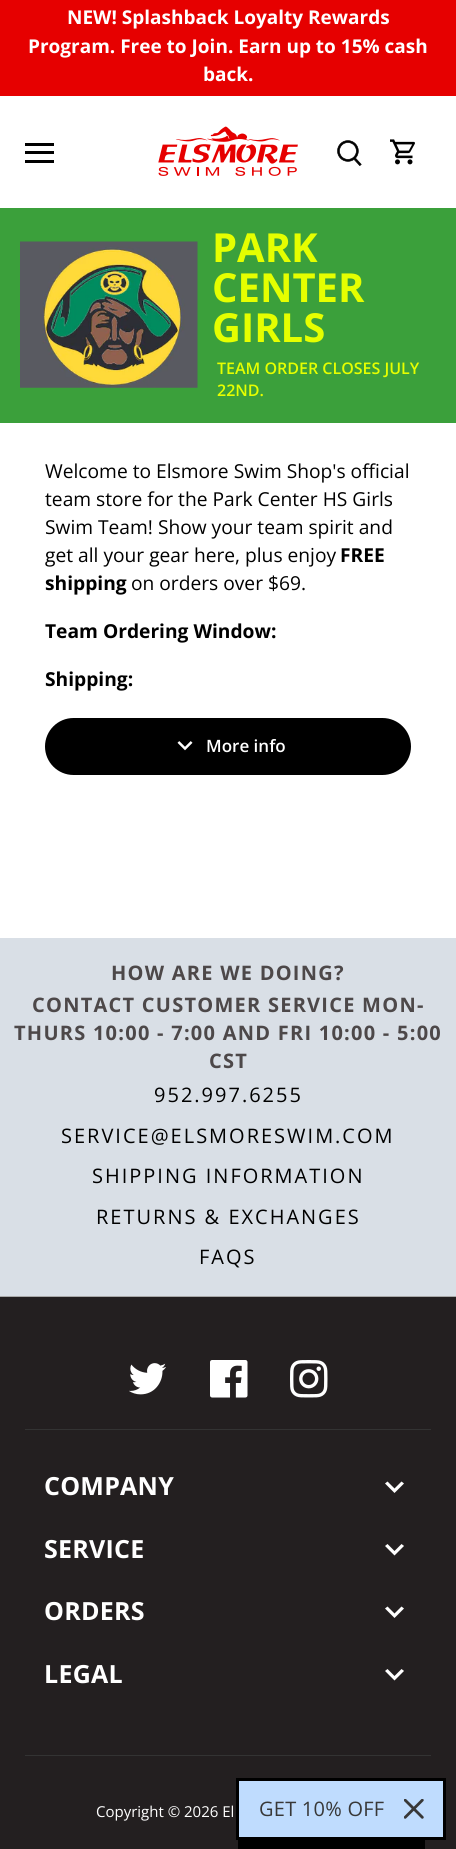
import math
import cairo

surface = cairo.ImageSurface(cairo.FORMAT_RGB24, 456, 1849)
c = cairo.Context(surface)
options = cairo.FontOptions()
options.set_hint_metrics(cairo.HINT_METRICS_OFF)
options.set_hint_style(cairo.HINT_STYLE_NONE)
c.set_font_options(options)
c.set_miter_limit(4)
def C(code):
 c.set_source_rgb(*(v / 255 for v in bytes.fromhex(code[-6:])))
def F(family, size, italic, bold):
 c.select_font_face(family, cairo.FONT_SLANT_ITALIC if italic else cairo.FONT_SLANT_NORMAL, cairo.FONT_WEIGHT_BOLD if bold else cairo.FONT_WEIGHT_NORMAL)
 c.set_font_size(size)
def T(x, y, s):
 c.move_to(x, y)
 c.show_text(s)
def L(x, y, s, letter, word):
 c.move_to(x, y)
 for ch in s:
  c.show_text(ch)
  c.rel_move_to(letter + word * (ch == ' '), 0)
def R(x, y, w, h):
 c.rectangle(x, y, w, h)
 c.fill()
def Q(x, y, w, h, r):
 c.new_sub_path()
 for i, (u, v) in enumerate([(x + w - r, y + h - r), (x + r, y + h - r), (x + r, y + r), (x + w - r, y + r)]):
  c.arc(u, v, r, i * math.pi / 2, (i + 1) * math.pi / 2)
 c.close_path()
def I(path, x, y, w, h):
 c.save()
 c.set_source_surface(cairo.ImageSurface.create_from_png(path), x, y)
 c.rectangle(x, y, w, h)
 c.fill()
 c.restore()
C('ffffff')
c.paint()
C('e60000')
R(0,0,456,96)
F('Open Sans',19,0,1)
C('ffffff')
T(67,24,'NEW! Splashback Loyalty Rewards')
T(28,53,'Program. Free to Join. Earn up to 15% cash')
T(203,81,'back.')
C('000000')
R(25,143,29,3)
R(25,151,29,3)
R(25,160,29,3)
I('1.png',158,126,140,50)
I('2.png',337,140,25,26)
I('3.png',390,139,25,26)
C('3ba03b')
R(0,208,456,215)
I('4.png',20,241,178,147)
F('Open Sans',40,0,1)
C('e5ff00')
T(212,262,'PARK')
T(212,302,'CENTER')
T(212,342,'GIRLS')
F('Open Sans SemiBold',16,0,0)
T(217,374,'TEAM ORDER CLOSES JULY')
T(217,396,'22ND.')
F('Open Sans',19.2,0,0)
C('000000')
T(45,478,'Welcome to Elsmore Swim Shop\'s official')
T(45,506,'team store for the Park Center HS Girls')
T(45,534,'Swim Team! Show your team spirit and')
T(45,562,'get all your gear here, plus enjoy')
F('Open Sans',19.2,0,1)
T(340,562,'FREE')
T(45,590,'shipping')
F('Open Sans',19.2,0,0)
T(131,590,'on orders over $69.')
F('Open Sans',19.2,0,1)
T(45,638,'Team Ordering Window:')
T(45,686,'Shipping:')
Q(45,718,366,57,28.5)
c.fill()
I('5.png',177,741,16,10)
F('Open Sans SemiBold',17,0,0)
C('ffffff')
T(206,752,'More info')
C('d9dfe6')
R(0,938,456,358)
F('Open Sans',20,0,1)
C('4d4849')
L(111,980,'HOW ARE WE DOING?',1.25,0)
L(32,1012,'CONTACT CUSTOMER SERVICE MON-',1.25,0)
L(14,1040,'THURS 10:00 - 7:00 AND FRI 10:00 - 5:00',1.25,0)
L(209,1068,'CST',1.25,0)
F('Open Sans',20,0,0)
C('000000')
L(154,1102,'952.997.6255',2,0)
L(61,1143,'SERVICE@ELSMORESWIM.COM',2,0)
L(92,1183,'SHIPPING INFORMATION',2,0)
L(96,1224,'RETURNS & EXCHANGES',2,0)
L(199,1264,'FAQS',2,0)
C('231f20')
R(0,1297,456,552)
C('a9a9a9')
R(0,1296,456,1)
I('6.png',129,1363,37,32)
I('7.png',210,1360,38,38)
I('8.png',290,1360,38,38)
C('333333')
R(25,1429,406,1)
R(25,1755,406,1)
F('Open Sans',25,0,1)
C('ffffff')
L(44,1495,'COMPANY',.25,0)
c.new_path()
c.move_to(387.5,1481.5)
c.line_to(394.5,1488.5)
c.line_to(401.5,1481.5)
c.line_to(404,1483.5)
c.line_to(394.5,1493)
c.line_to(385,1483.5)
c.close_path()
c.fill()
L(44,1558,'SERVICE',.25,0)
c.new_path()
c.move_to(387.5,1544)
c.line_to(394.5,1551)
c.line_to(401.5,1544)
c.line_to(404,1546)
c.line_to(394.5,1555.5)
c.line_to(385,1546)
c.close_path()
c.fill()
L(44,1620,'ORDERS',.25,0)
c.new_path()
c.move_to(387.5,1606.5)
c.line_to(394.5,1613.5)
c.line_to(401.5,1606.5)
c.line_to(404,1608.5)
c.line_to(394.5,1618)
c.line_to(385,1608.5)
c.close_path()
c.fill()
L(44,1683,'LEGAL',.25,0)
c.new_path()
c.move_to(387.5,1669)
c.line_to(394.5,1676)
c.line_to(401.5,1669)
c.line_to(404,1671)
c.line_to(394.5,1680.5)
c.line_to(385,1671)
c.close_path()
c.fill()
F('Open Sans',15,0,0)
T(96,1817,'Copyright © 2026 El')
C('bfdcfe')
c.rectangle(237.5,1779.5,207,59)
c.fill_preserve()
C('000000')
c.set_line_width(3)
c.stroke()
F('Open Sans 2',20,0,0)
C('383838')
L(259,1816,'GET 10% OFF',.25,0)
I('9.png',404,1799,20,20)
C('000000')
R(238,1840,187,9)
surface.write_to_png('o.png')
